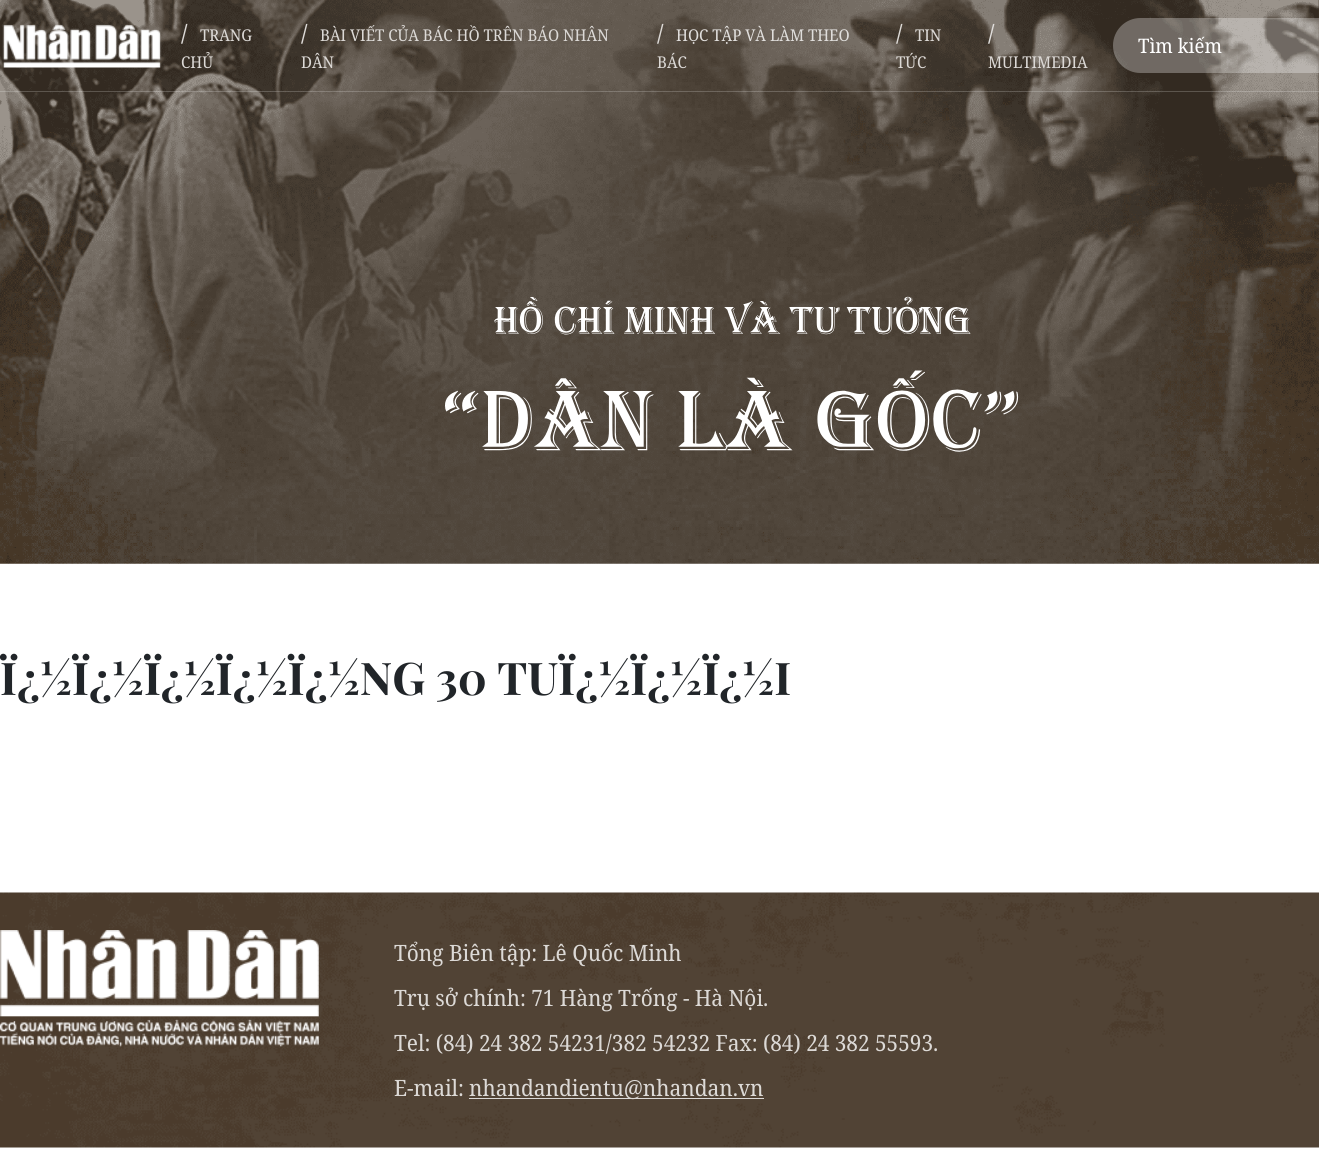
import math
import cairo

surface = cairo.ImageSurface(cairo.FORMAT_RGB24, 1319, 1162)
c = cairo.Context(surface)
options = cairo.FontOptions()
options.set_hint_metrics(cairo.HINT_METRICS_OFF)
options.set_hint_style(cairo.HINT_STYLE_NONE)
c.set_font_options(options)
c.set_miter_limit(4)
def C(code):
 c.set_source_rgb(*(v / 255 for v in bytes.fromhex(code[-6:])))
def F(family, size, italic, bold):
 c.select_font_face(family, cairo.FONT_SLANT_ITALIC if italic else cairo.FONT_SLANT_NORMAL, cairo.FONT_WEIGHT_BOLD if bold else cairo.FONT_WEIGHT_NORMAL)
 c.set_font_size(size)
def T(x, y, s):
 c.move_to(x, y)
 c.show_text(s)
def R(x, y, w, h):
 c.rectangle(x, y, w, h)
 c.fill()
def Q(x, y, w, h, r):
 c.new_sub_path()
 for i, (u, v) in enumerate([(x + w - r, y + h - r), (x + r, y + h - r), (x + r, y + r), (x + w - r, y + r)]):
  c.arc(u, v, r, i * math.pi / 2, (i + 1) * math.pi / 2)
 c.close_path()
def I(path, x, y, w, h):
 c.save()
 c.set_source_surface(cairo.ImageSurface.create_from_png(path), x, y)
 c.rectangle(x, y, w, h)
 c.fill()
 c.restore()
C('ffffff')
c.paint()
I('1.png',0,0,1319,564)
c.set_source_rgba(1,1,1,0.2)
R(0,91,1319,1)
I('2.png',2,24,160,44)
F('Noto Serif SemiBold',22.5,0,0)
C('dcd9d6')
T(181,41,'/')
F('Noto Serif',16.25,0,0)
T(200,41,'TRANG')
T(181,68,'CHỦ')
F('Noto Serif SemiBold',22.5,0,0)
T(301,41,'/')
F('Noto Serif',16.25,0,0)
T(320,41,'BÀI VIẾT CỦA BÁC HỒ TRÊN BÁO NHÂN')
T(301,68,'DÂN')
F('Noto Serif SemiBold',22.5,0,0)
T(657,41,'/')
F('Noto Serif',16.25,0,0)
C('e0dedc')
T(676,41,'HỌC TẬP VÀ LÀM THEO')
C('dcd9d6')
T(657,68,'BÁC')
F('Noto Serif SemiBold',22.5,0,0)
T(896,41,'/')
F('Noto Serif',16.25,0,0)
T(915,41,'TIN')
T(896,68,'TỨC')
F('Noto Serif SemiBold',22.5,0,0)
C('e0dedc')
T(988,41,'/')
F('Noto Serif',16.25,0,0)
C('dcd9d6')
T(988,68,'MULTIMEDIA')
c.set_source_rgba(1,1,1,0.3)
Q(1113,18,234,55,27.5)
c.fill()
F('Noto Serif',20,0,0)
C('ffffff')
T(1138,53,'Tìm kiếm')
I('3.png',445,296,574,156)
F('Playfair Display',45,0,1)
C('212529')
T(0,695,'Ï¿½Ï¿½Ï¿½Ï¿½Ï¿½NG 30 TUÏ¿½Ï¿½Ï¿½I')
I('4.png',0,892,1319,256)
I('5.png',0,930,319,117)
F('Noto Serif',22.5,0,0)
C('dcd9d6')
T(394,961,'Tổng Biên tập: Lê Quốc Minh')
T(394,1006,'Trụ sở chính: 71 Hàng Trống - Hà Nội.')
T(394,1051,'Tel: (84) 24 382 54231/382 54232 Fax: (84) 24 382 55593.')
T(394,1096,'E-mail:')
c.set_source_rgba(1,1,1,0.8)
R(469,1098,295,1)
C('dcd9d6')
T(469,1096,'nhandandientu@nhandan.vn')
surface.write_to_png('o.png')
